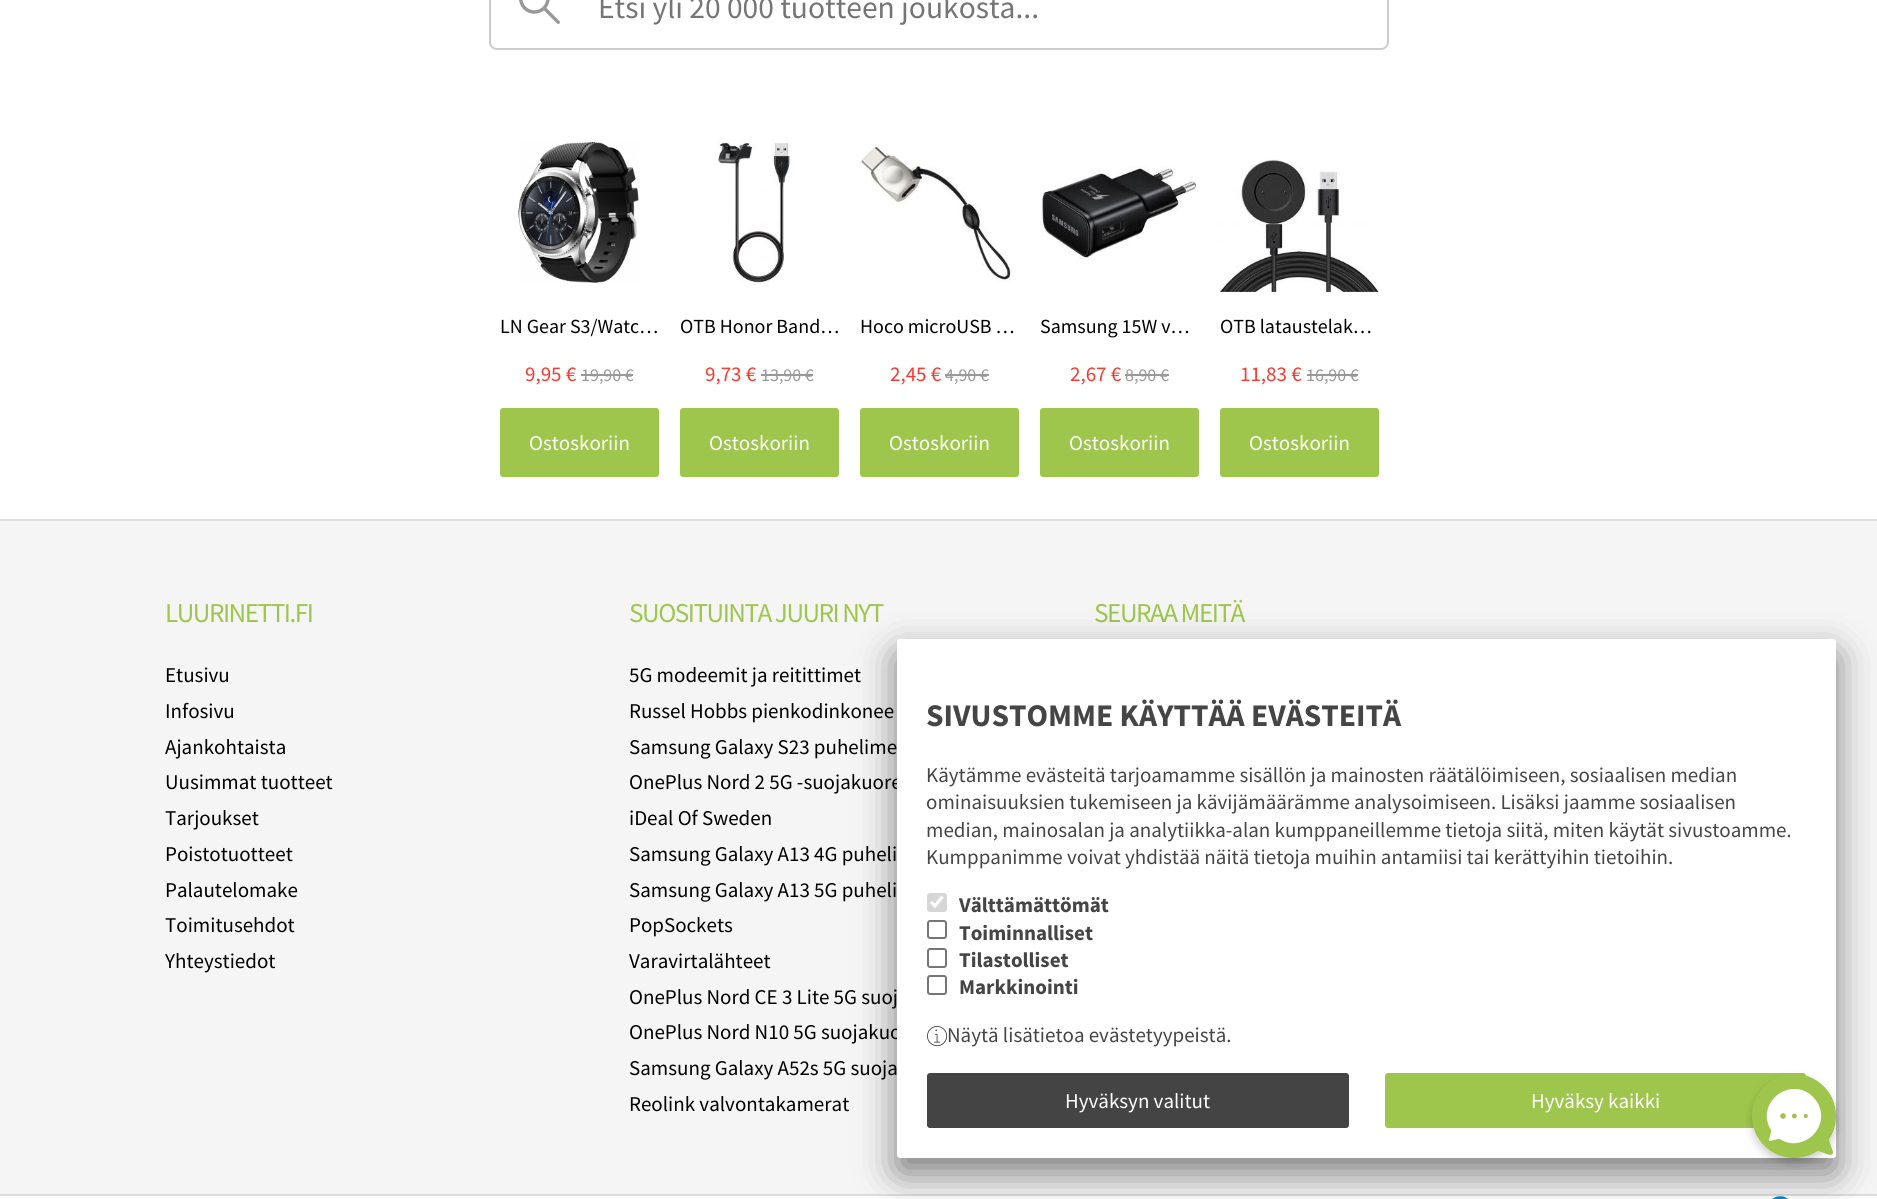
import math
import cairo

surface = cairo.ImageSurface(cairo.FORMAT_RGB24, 1877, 1199)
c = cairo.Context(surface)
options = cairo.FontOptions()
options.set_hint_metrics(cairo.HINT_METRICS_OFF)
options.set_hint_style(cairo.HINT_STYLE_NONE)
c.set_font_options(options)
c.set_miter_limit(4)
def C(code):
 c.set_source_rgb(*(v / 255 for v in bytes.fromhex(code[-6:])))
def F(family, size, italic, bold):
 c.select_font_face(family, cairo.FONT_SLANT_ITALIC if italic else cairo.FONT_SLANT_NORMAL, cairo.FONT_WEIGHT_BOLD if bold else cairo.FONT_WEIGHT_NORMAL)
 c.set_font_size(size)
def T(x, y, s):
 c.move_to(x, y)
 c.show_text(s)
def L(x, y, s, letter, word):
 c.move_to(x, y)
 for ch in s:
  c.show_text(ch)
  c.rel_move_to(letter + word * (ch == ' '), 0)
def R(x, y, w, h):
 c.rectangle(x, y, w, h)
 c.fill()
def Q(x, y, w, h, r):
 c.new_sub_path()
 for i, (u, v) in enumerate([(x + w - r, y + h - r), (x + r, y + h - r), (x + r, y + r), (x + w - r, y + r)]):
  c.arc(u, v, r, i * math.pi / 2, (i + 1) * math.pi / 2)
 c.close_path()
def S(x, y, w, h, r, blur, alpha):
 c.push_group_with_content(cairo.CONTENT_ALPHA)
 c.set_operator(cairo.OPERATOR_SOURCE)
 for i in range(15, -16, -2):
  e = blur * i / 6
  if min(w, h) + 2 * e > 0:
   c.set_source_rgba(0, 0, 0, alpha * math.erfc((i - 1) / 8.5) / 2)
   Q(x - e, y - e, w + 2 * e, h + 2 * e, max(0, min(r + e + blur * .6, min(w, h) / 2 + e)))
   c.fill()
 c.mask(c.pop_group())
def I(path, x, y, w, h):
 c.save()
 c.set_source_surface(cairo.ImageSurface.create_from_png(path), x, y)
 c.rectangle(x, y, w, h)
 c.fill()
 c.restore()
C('ffffff')
c.paint()
Q(490,-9,898,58,7)
C('cccccc')
c.stroke()
I('1.png',519,0,41,24)
F('Source Sans Pro',31.5,0,0)
C('757575')
T(598,18,'Etsi yli 20 000 tuotteen joukosta...')
I('2.png',518,141,121,142)
F('Source Sans Pro',20,0,0)
C('000000')
T(500,333,'LN Gear S3/Watc…')
F('Source Sans Pro',21,0,0)
C('f63933')
T(525,381,'9,95 €')
F('Source Sans Pro',18,0,0)
C('999999')
T(581,381,'19,90 €')
R(581,374,52,2)
C('9ec64c')
Q(500,408,159,69,3)
c.fill()
F('Source Sans Pro',21,0,0)
C('ffffff')
T(529,450,'Ostoskoriin')
I('3.png',718,139,72,144)
F('Source Sans Pro',20,0,0)
C('000000')
T(680,333,'OTB Honor Band…')
F('Source Sans Pro',21,0,0)
C('f63933')
T(705,381,'9,73 €')
F('Source Sans Pro',18,0,0)
C('999999')
T(761,381,'13,90 €')
R(761,374,52,2)
C('9ec64c')
Q(680,408,159,69,3)
c.fill()
F('Source Sans Pro',21,0,0)
C('ffffff')
T(709,450,'Ostoskoriin')
I('4.png',859,144,155,138)
F('Source Sans Pro',20,0,0)
C('000000')
T(860,333,'Hoco microUSB …')
F('Source Sans Pro',21,0,0)
C('f63933')
T(890,381,'2,45 €')
F('Source Sans Pro',18,0,0)
C('999999')
T(945,381,'4,90 €')
R(945,374,44,2)
C('9ec64c')
Q(860,408,159,69,3)
c.fill()
F('Source Sans Pro',21,0,0)
C('ffffff')
T(889,450,'Ostoskoriin')
I('5.png',1040,166,157,94)
F('Source Sans Pro',20,0,0)
C('000000')
T(1040,333,'Samsung 15W v…')
F('Source Sans Pro',21,0,0)
C('f63933')
T(1070,381,'2,67 €')
F('Source Sans Pro',18,0,0)
C('999999')
T(1125,381,'8,90 €')
R(1125,374,44,2)
C('9ec64c')
Q(1040,408,159,69,3)
c.fill()
F('Source Sans Pro',21,0,0)
C('ffffff')
T(1069,450,'Ostoskoriin')
I('6.png',1219,159,160,133)
F('Source Sans Pro',20,0,0)
C('000000')
T(1220,333,'OTB lataustelak…')
F('Source Sans Pro',21,0,0)
C('f63933')
T(1240,381,'11,83 €')
F('Source Sans Pro',18,0,0)
C('999999')
T(1306,381,'16,90 €')
R(1307,374,51,2)
C('9ec64c')
Q(1220,408,159,69,3)
c.fill()
F('Source Sans Pro',21,0,0)
C('ffffff')
T(1249,450,'Ostoskoriin')
C('f5f5f5')
R(0,521,1877,673)
C('dddddd')
R(0,519,1877,2)
R(0,1194,1877,2)
F('Source Sans Pro',27.25,0,0)
C('9ec64c')
L(165,622,'LUURINETTI.FI',-1.5,0)
F('Source Sans Pro',21,0,0)
C('000000')
T(165,682,'Etusivu')
T(165,718,'Infosivu')
T(165,754,'Ajankohtaista')
T(165,789,'Uusimmat tuotteet')
T(165,825,'Tarjoukset')
T(165,861,'Poistotuotteet')
T(165,897,'Palautelomake')
T(165,932,'Toimitusehdot')
T(165,968,'Yhteystiedot')
F('Source Sans Pro',27.25,0,0)
C('9ec64c')
L(629,622,'SUOSITUINTA JUURI NYT',-1.5,0)
F('Source Sans Pro',21,0,0)
C('000000')
T(629,682,'5G modeemit ja reitittimet')
T(629,718,'Russel Hobbs pienkodinkonee')
T(629,754,'Samsung Galaxy S23 puhelime')
T(629,789,'OnePlus Nord 2 5G -suojakuore')
T(629,825,'iDeal Of Sweden')
T(629,861,'Samsung Galaxy A13 4G puheli')
T(629,897,'Samsung Galaxy A13 5G puheli')
T(629,932,'PopSockets')
T(629,968,'Varavirtalähteet')
T(629,1004,'OnePlus Nord CE 3 Lite 5G suoj')
T(629,1039,'OnePlus Nord N10 5G suojakuo')
T(629,1075,'Samsung Galaxy A52s 5G suoja')
T(629,1111,'Reolink valvontakamerat')
F('Source Sans Pro',27.25,0,0)
C('9ec64c')
L(1094,622,'SEURAA MEITÄ',-1.5,0)
I('8.png',1772,1195,17,4)
C('000000')
S(897,654,939,519,3,19,.5)
C('ffffff')
Q(897,639,939,519,3)
c.fill()
C('9ec64c')
Q(1385,1073,421,55,3)
c.fill()
C('000000')
S(1752,1079,84,84,42,4.5,.2)
C('9ec64c')
c.arc(1794,1116,42,0,2 * math.pi)
c.fill()
c.new_path()
c.move_to(1824,1087)
c.curve_to(1807,1070,1780,1070,1764,1088)
c.curve_to(1749,1104,1749,1129,1765,1145)
c.curve_to(1778,1159,1799,1161,1815,1152)
c.curve_to(1816,1151,1817,1151,1818,1151)
c.line_to(1830,1155)
c.curve_to(1832,1155,1833,1154,1833,1152)
c.line_to(1829,1140)
c.curve_to(1829,1139,1829,1138,1830,1137)
c.curve_to(1839,1121,1837,1100,1824,1087)
c.close_path()
c.fill()
C('ffffff')
c.new_path()
c.move_to(1813,1135)
c.curve_to(1824,1124,1824,1107,1812,1096)
c.curve_to(1802,1086,1785,1087,1775,1097)
c.curve_to(1766,1106,1764,1119,1771,1130)
c.line_to(1771,1132)
c.line_to(1769,1140)
c.curve_to(1769,1140,1769,1141,1770,1141)
c.line_to(1778,1139)
c.line_to(1780,1139)
c.curve_to(1790,1146,1804,1144,1813,1135)
c.close_path()
c.fill()
I('7.png',1780,1113,28,6)
F('Source Sans Pro',31.5,0,1)
C('454545')
T(926,726,'SIVUSTOMME KÄYTTÄÄ EVÄSTEITÄ')
F('Source Sans Pro',21,0,0)
T(926,782,'Käytämme evästeitä tarjoamamme sisällön ja mainosten räätälöimiseen, sosiaalisen median')
T(926,809,'ominaisuuksien tukemiseen ja kävijämäärämme analysoimiseen. Lisäksi jaamme sosiaalisen')
T(926,837,'median, mainosalan ja analytiikka-alan kumppaneillemme tietoja siitä, miten käytät sivustoamme.')
T(926,864,'Kumppanimme voivat yhdistää näitä tietoja muihin antamiisi tai kerättyihin tietoihin.')
C('d6d6d6')
Q(927,893,20,19,3)
c.fill()
c.new_path()
c.move_to(931,902)
c.line_to(935,906)
c.line_to(942.5,896.5)
C('ffffff')
c.set_line_width(3.1)
c.stroke()
F('Source Sans Pro',21,0,1)
C('454545')
T(959,912,'Välttämättömät')
Q(928,921,18,17,2)
C('767676')
c.set_line_width(2)
c.stroke()
C('454545')
T(959,940,'Toiminnalliset')
Q(928,949,18,18,2)
C('767676')
c.stroke()
C('454545')
T(959,967,'Tilastolliset')
Q(928,976,18,18,2)
C('767676')
c.stroke()
C('454545')
T(959,994,'Markkinointi')
I('9.png',927,1026,21,21)
F('Source Sans Pro',21,0,0)
T(947,1042,'Näytä lisätietoa evästetyypeistä.')
C('444444')
Q(927,1073,422,55,3)
c.fill()
C('ffffff')
T(1065,1108,'Hyväksyn valitut')
T(1531,1108,'Hyväksy kaikki')
surface.write_to_png('o.png')
